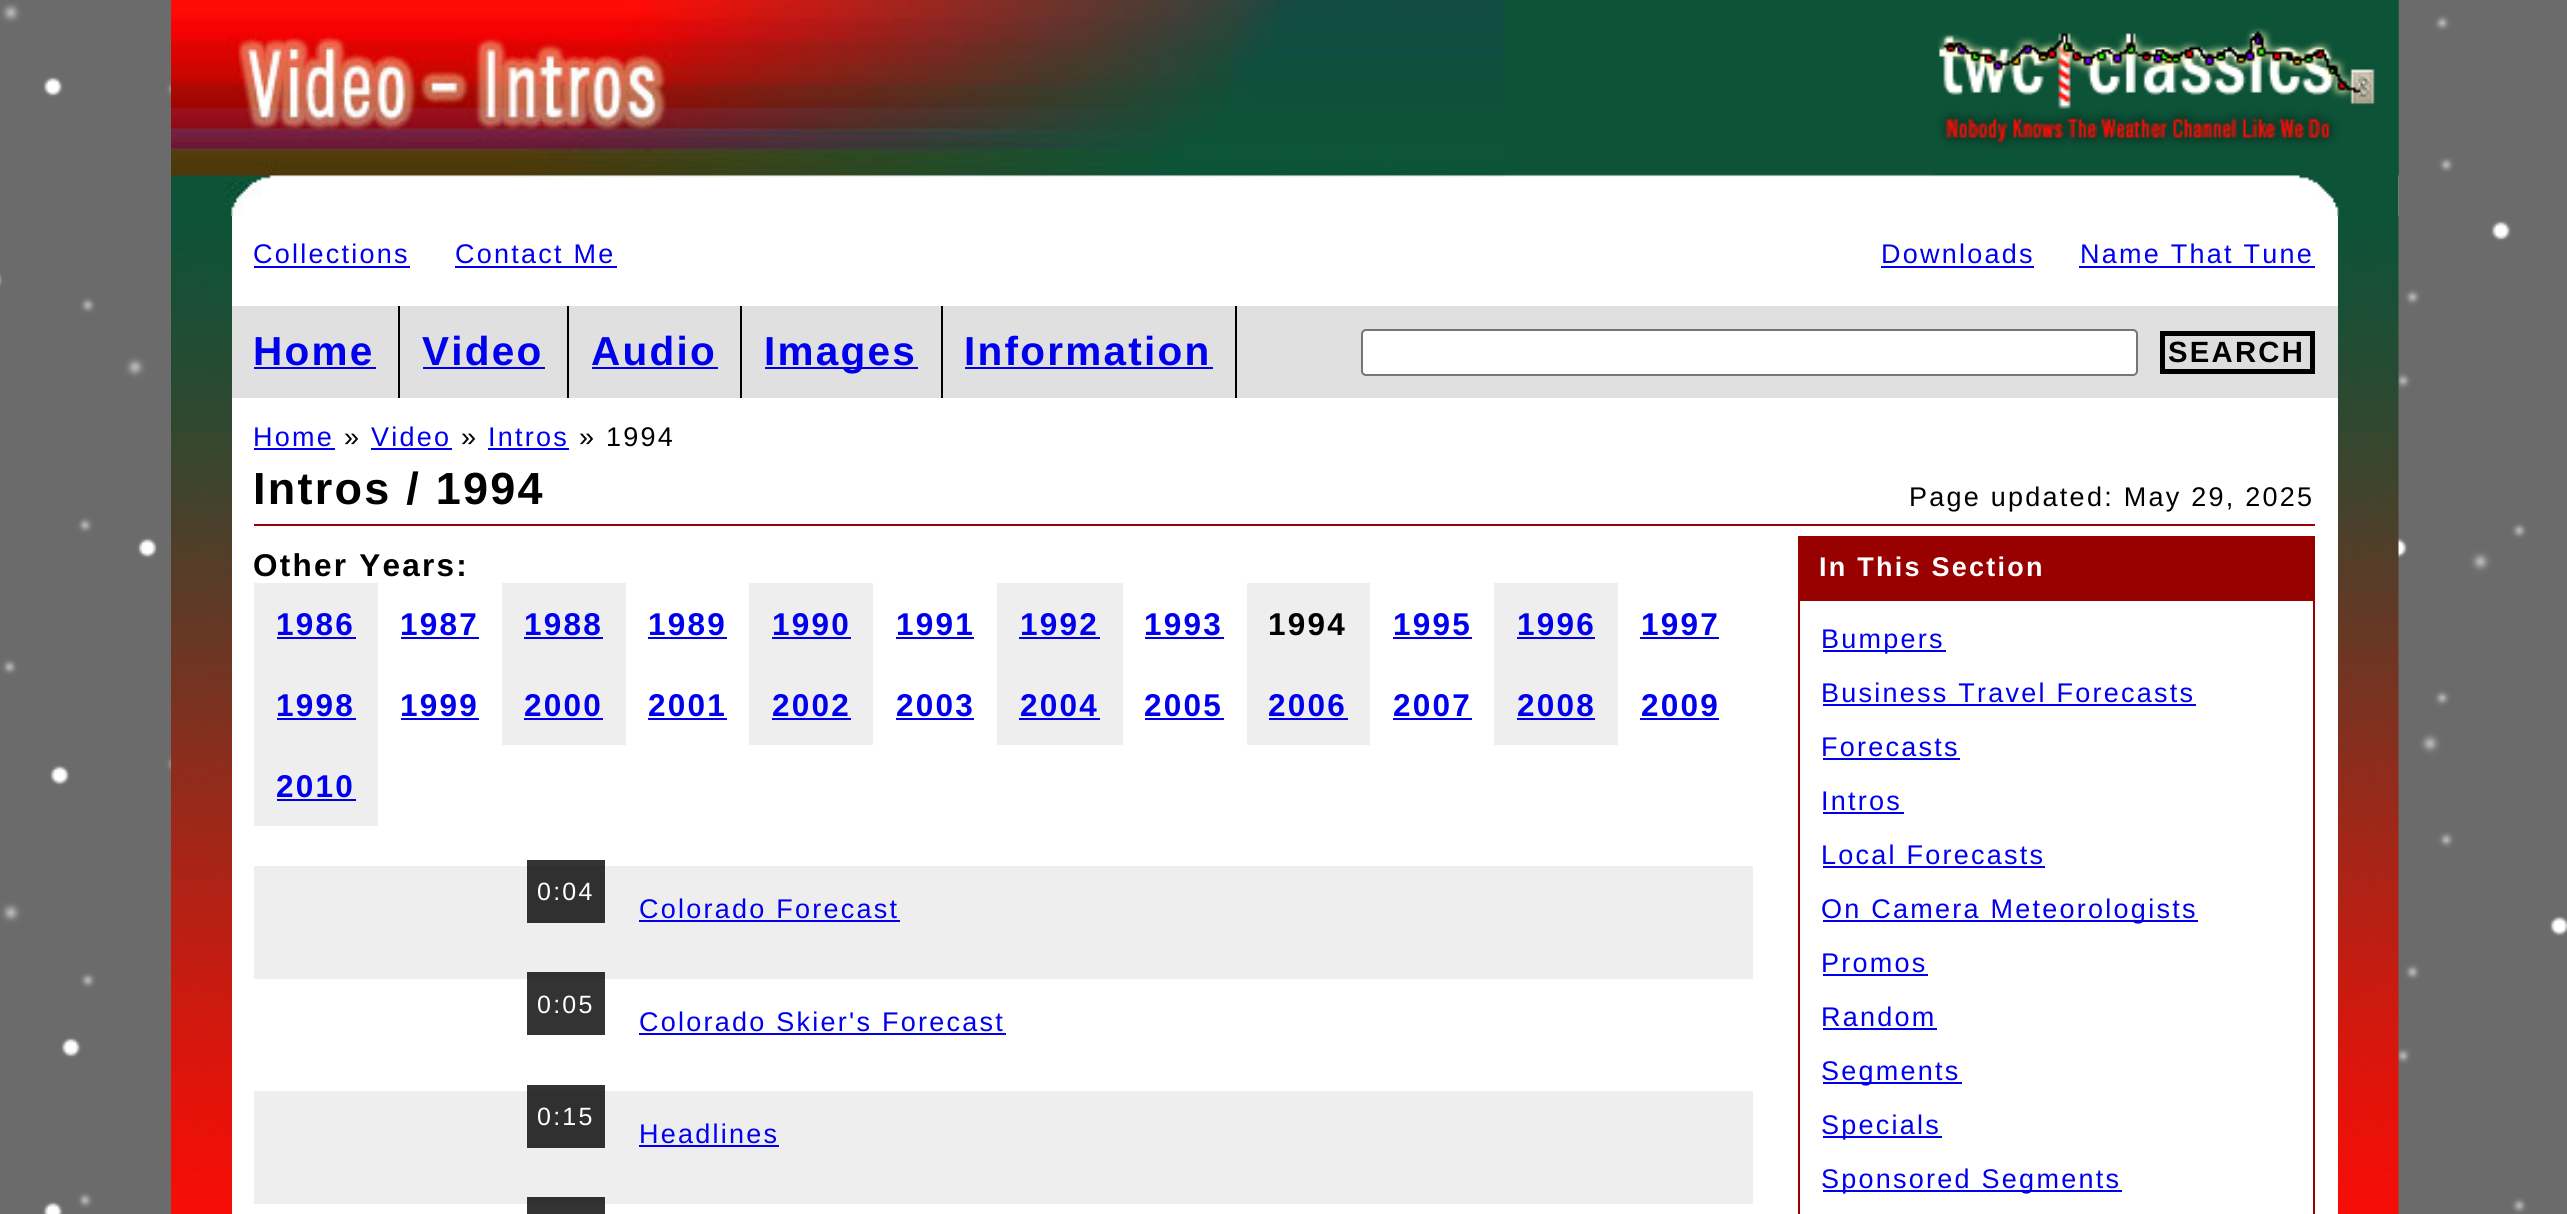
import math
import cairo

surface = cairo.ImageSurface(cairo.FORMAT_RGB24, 2567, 1214)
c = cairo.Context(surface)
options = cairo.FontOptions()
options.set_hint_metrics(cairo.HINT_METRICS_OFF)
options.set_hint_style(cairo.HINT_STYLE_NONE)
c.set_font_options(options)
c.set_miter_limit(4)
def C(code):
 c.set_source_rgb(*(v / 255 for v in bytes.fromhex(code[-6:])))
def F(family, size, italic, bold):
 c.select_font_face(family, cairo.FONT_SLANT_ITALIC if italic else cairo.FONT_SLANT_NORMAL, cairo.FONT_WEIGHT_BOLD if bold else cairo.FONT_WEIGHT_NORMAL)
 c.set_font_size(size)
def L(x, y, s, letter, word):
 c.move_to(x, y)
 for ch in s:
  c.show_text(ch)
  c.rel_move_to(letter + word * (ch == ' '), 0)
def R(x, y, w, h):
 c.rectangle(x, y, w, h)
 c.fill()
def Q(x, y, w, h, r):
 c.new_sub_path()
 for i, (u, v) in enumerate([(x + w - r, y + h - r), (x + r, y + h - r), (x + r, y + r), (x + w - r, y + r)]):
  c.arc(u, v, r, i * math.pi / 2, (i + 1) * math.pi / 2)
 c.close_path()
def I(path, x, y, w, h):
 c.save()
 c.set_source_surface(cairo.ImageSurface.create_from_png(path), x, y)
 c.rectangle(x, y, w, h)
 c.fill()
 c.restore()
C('6b6b6b')
c.paint()
I('1.png',0,2,2567,1212)
I('2.png',1505,0,894,216)
I('3.png',171,0,1334,216)
I('4.png',1933,0,466,216)
I('5.png',171,216,2228,998)
C('ffffff')
R(232,216,2106,998)
F('Liberation Sans',27,0,0)
C('0000ee')
L(253,263,'Collections',2.25,0)
R(254,266,156,2)
L(455,263,'Contact Me',2.25,0)
R(455,266,162,2)
L(1881,263,'Downloads',2.25,0)
R(1881,266,153,2)
L(2080,263,'Name That Tune',2.25,0)
R(2079,266,236,2)
C('e0e0e0')
R(232,306,2106,92)
C('000000')
R(398,306,2,92)
F('Liberation Sans',40.5,0,1)
C('0000ee')
L(253,365,'Home',2.25,0)
R(254,367,122,2)
C('000000')
R(567,306,2,92)
C('0000ee')
L(422,365,'Video',2.25,0)
R(423,367,122,2)
C('000000')
R(740,306,2,92)
C('0000ee')
L(591,365,'Audio',2.25,0)
R(592,367,126,2)
C('000000')
R(941,306,2,92)
C('0000ee')
R(765,367,153,2)
L(764,365,'Images',2.25,0)
C('000000')
R(1235,306,2,92)
C('0000ee')
L(964,365,'Information',2.25,0)
R(965,367,248,2)
C('ffffff')
Q(1362,330,775,45,4)
c.fill_preserve()
C('767676')
c.stroke()
C('dddddd')
c.rectangle(2162.5,333.5,150,38)
c.fill_preserve()
C('000000')
c.set_line_width(5)
c.stroke()
F('Liberation Sans',29.25,0,1)
L(2168,362,'SEARCH',2.25,0)
F('Liberation Sans',27,0,0)
C('0000ee')
L(253,446,'Home',2.25,0)
R(254,448,81,2)
C('000000')
L(344,446,'»',2.25,0)
C('0000ee')
L(371,446,'Video',2.25,0)
R(371,448,81,2)
C('000000')
L(461,446,'»',2.25,0)
C('0000ee')
L(488,446,'Intros',2.25,0)
R(488,448,81,2)
C('000000')
L(579,446,'» 1994',2.25,0)
F('Liberation Sans',45,0,1)
L(253,504,'Intros / 1994',2.25,0)
F('Liberation Sans',27,0,0)
L(1909,506,'Page updated: May 29, 2025',2.25,0)
C('990000')
R(254,524,2061,2)
F('Liberation Sans',31.5,0,1)
C('000000')
L(253,576,'Other Years:',2.25,0)
C('eeeeee')
R(254,583,124,243)
C('0000ee')
L(276,635,'1986',2.25,0)
R(277,637,79,2)
L(400,635,'1987',2.25,0)
R(401,637,78,2)
C('eeeeee')
R(502,583,124,162)
C('0000ee')
L(524,635,'1988',2.25,0)
R(524,637,79,2)
L(648,635,'1989',2.25,0)
R(648,637,79,2)
C('eeeeee')
R(749,583,124,162)
C('0000ee')
L(772,635,'1990',2.25,0)
R(772,637,79,2)
L(896,635,'1991',2.25,0)
R(896,637,78,2)
C('eeeeee')
R(997,583,126,162)
C('0000ee')
L(1020,635,'1992',2.25,0)
R(1019,637,81,2)
L(1144,635,'1993',2.25,0)
R(1145,637,79,2)
C('eeeeee')
R(1247,583,123,162)
C('000000')
L(1268,635,'1994',2.25,0)
C('0000ee')
L(1393,635,'1995',2.25,0)
R(1393,637,79,2)
C('eeeeee')
R(1494,583,124,162)
C('0000ee')
L(1517,635,'1996',2.25,0)
R(1517,637,78,2)
L(1641,635,'1997',2.25,0)
R(1640,637,79,2)
L(276,716,'1998',2.25,0)
R(277,718,79,2)
L(400,716,'1999',2.25,0)
R(401,718,78,2)
L(524,716,'2000',2.25,0)
R(524,718,79,2)
L(648,716,'2001',2.25,0)
R(648,718,79,2)
L(772,716,'2002',2.25,0)
R(772,718,79,2)
L(896,716,'2003',2.25,0)
R(896,718,78,2)
L(1020,716,'2004',2.25,0)
R(1019,718,81,2)
L(1144,716,'2005',2.25,0)
R(1145,718,79,2)
L(1268,716,'2006',2.25,0)
R(1269,718,79,2)
L(1393,716,'2007',2.25,0)
R(1393,718,79,2)
L(1517,716,'2008',2.25,0)
R(1517,718,78,2)
L(1641,716,'2009',2.25,0)
R(1640,718,79,2)
L(276,797,'2010',2.25,0)
R(277,799,79,2)
C('eeeeee')
R(254,866,1499,113)
c.set_source_rgba(0,0,0,0.8)
R(527,860,78,63)
F('Liberation Sans',25,0,0)
C('ffffff')
L(537,900,'0:04',2.25,0)
F('Liberation Sans',27,0,0)
C('0000ee')
L(639,918,'Colorado Forecast',2.25,0)
R(639,920,261,2)
c.set_source_rgba(0,0,0,0.8)
R(527,972,78,63)
F('Liberation Sans',25,0,0)
C('ffffff')
L(537,1013,'0:05',2.25,0)
F('Liberation Sans',27,0,0)
C('0000ee')
L(639,1031,'Colorado Skier\'s Forecast',2.25,0)
R(639,1033,367,2)
C('eeeeee')
R(254,1091,1499,113)
c.set_source_rgba(0,0,0,0.8)
R(527,1085,78,63)
F('Liberation Sans',25,0,0)
C('ffffff')
L(537,1125,'0:15',2.25,0)
F('Liberation Sans',27,0,0)
C('0000ee')
L(639,1143,'Headlines',2.25,0)
R(639,1145,140,2)
c.set_source_rgba(0,0,0,0.8)
R(527,1197,78,17)
C('990000')
R(1798,536,517,63)
F('Liberation Sans',27,0,1)
C('ffffff')
L(1819,576,'In This Section',2.25,0)
c.rectangle(1799,600,515,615)
C('990000')
c.set_line_width(2)
c.stroke()
C('0000ee')
R(1823,650,123,2)
F('Liberation Sans',27,0,0)
L(1821,648,'Bumpers',2.25,0)
L(1821,702,'Business Travel Forecasts',2.25,0)
R(1823,704,373,2)
L(1821,756,'Forecasts',2.25,0)
R(1823,758,137,2)
L(1821,810,'Intros',2.25,0)
R(1823,812,81,2)
L(1821,864,'Local Forecasts',2.25,0)
R(1823,866,222,2)
R(1823,920,375,2)
L(1821,918,'On Camera Meteorologists',2.25,0)
L(1821,972,'Promos',2.25,0)
R(1823,974,105,2)
L(1821,1026,'Random',2.25,0)
R(1823,1028,114,2)
R(1823,1082,139,2)
L(1821,1080,'Segments',2.25,0)
R(1823,1136,119,2)
L(1821,1134,'Specials',2.25,0)
R(1823,1190,299,2)
L(1821,1188,'Sponsored Segments',2.25,0)
surface.write_to_png('o.png')
